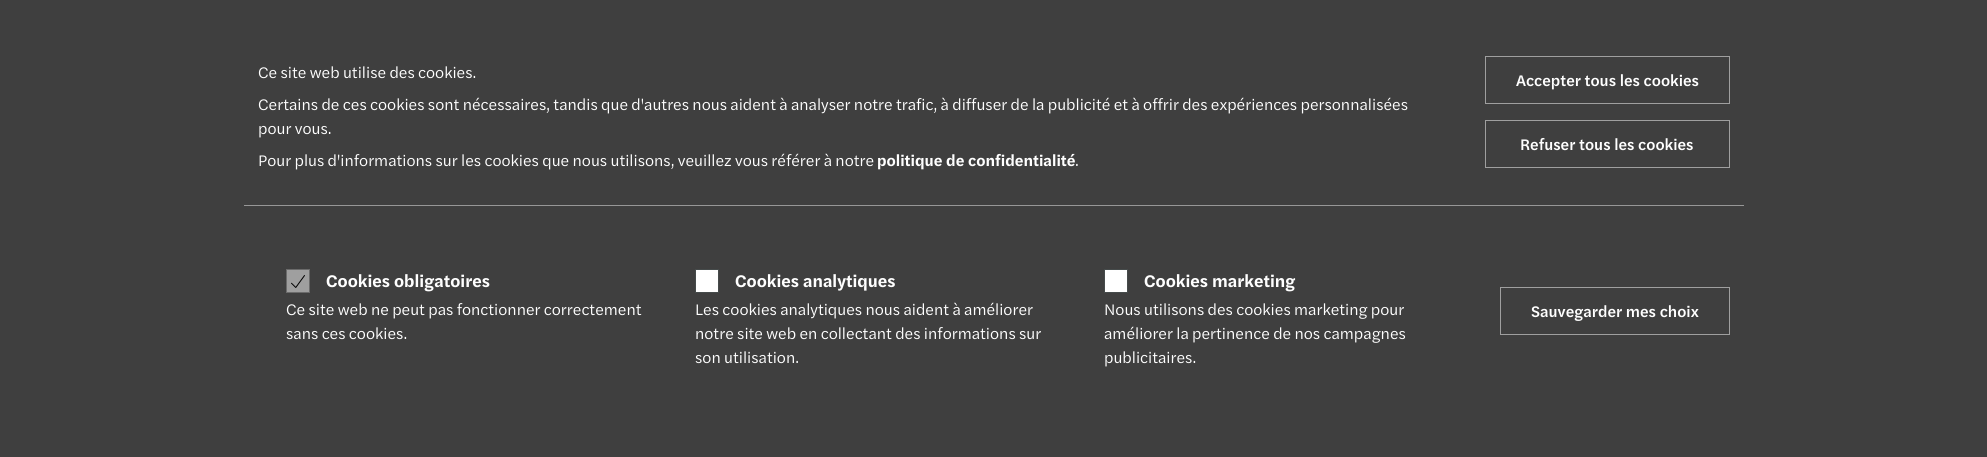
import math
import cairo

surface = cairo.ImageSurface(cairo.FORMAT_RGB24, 1987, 457)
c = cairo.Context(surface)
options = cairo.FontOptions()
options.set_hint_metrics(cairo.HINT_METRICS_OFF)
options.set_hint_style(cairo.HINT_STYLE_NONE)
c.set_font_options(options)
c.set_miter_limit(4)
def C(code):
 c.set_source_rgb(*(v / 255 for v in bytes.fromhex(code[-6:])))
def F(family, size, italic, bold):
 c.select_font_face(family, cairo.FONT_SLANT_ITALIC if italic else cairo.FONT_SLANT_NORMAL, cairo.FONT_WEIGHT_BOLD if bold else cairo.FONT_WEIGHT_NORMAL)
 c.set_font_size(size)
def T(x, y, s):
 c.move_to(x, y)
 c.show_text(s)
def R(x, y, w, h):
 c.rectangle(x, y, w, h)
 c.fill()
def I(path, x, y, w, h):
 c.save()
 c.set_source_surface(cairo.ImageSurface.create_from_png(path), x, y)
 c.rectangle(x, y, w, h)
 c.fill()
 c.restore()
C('3f3f3f')
c.paint()
F('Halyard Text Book',16,0,0)
C('ffffff')
T(258,78,'Ce site web utilise des cookies.')
T(258,110,'Certains de ces cookies sont nécessaires, tandis que d\'autres nous aident à analyser notre trafic, à diffuser de la publicité et à offrir des expériences personnalisées')
T(258,134,'pour vous.')
T(258,166,'Pour plus d\'informations sur les cookies que nous utilisons, veuillez vous référer à notre')
F('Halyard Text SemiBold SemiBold',16,0,0)
T(877,166,'politique de confidentialité')
F('Halyard Text Book',16,0,0)
T(1075,166,'.')
c.rectangle(1485.5,56.5,244,47)
C('9f9f9f')
c.set_line_width(1)
c.stroke()
F('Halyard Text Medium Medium',16,0,0)
C('ffffff')
T(1516,86,'Accepter tous les cookies')
c.rectangle(1485.5,120.5,244,47)
C('9f9f9f')
c.stroke()
C('ffffff')
T(1520,150,'Refuser tous les cookies')
C('979797')
R(244,205,1500,1)
C('9f9f9f')
c.rectangle(286.5,269.5,23,23)
c.fill_preserve()
C('6b6b6b')
c.stroke()
F('Halyard Text SemiBold SemiBold',17.5,0,0)
C('ffffff')
T(326,287,'Cookies obligatoires')
I('1.png',291,275,14,13)
F('Halyard Text Book',16,0,0)
T(286,315,'Ce site web ne peut pas fonctionner correctement')
T(286,339,'sans ces cookies.')
c.rectangle(695.5,269.5,23,23)
c.fill_preserve()
C('464b4b')
c.stroke()
F('Halyard Text SemiBold SemiBold',17.5,0,0)
C('ffffff')
T(735,287,'Cookies analytiques')
F('Halyard Text Book',16,0,0)
T(695,315,'Les cookies analytiques nous aident à améliorer')
T(695,339,'notre site web en collectant des informations sur')
T(695,363,'son utilisation.')
c.rectangle(1104.5,269.5,23,23)
c.fill_preserve()
C('464b4b')
c.stroke()
F('Halyard Text SemiBold SemiBold',17.5,0,0)
C('ffffff')
T(1144,287,'Cookies marketing')
F('Halyard Text Book',16,0,0)
T(1104,315,'Nous utilisons des cookies marketing pour')
T(1104,339,'améliorer la pertinence de nos campagnes')
T(1104,363,'publicitaires.')
c.rectangle(1500.5,287.5,229,47)
C('9f9f9f')
c.stroke()
F('Halyard Text Medium Medium',16,0,0)
C('ffffff')
T(1531,317,'Sauvegarder mes choix')
surface.write_to_png('o.png')
